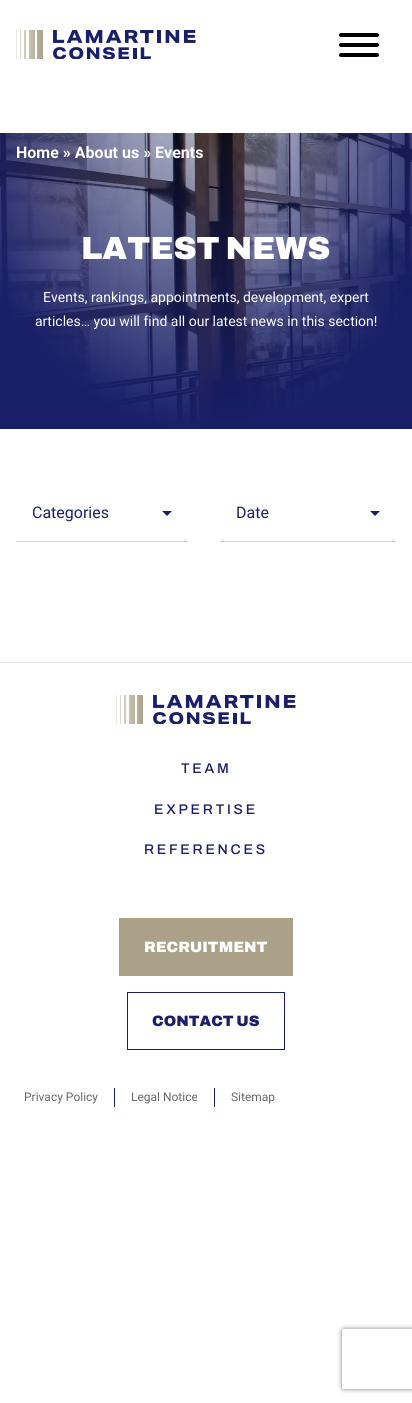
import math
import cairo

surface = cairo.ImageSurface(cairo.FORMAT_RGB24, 412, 1403)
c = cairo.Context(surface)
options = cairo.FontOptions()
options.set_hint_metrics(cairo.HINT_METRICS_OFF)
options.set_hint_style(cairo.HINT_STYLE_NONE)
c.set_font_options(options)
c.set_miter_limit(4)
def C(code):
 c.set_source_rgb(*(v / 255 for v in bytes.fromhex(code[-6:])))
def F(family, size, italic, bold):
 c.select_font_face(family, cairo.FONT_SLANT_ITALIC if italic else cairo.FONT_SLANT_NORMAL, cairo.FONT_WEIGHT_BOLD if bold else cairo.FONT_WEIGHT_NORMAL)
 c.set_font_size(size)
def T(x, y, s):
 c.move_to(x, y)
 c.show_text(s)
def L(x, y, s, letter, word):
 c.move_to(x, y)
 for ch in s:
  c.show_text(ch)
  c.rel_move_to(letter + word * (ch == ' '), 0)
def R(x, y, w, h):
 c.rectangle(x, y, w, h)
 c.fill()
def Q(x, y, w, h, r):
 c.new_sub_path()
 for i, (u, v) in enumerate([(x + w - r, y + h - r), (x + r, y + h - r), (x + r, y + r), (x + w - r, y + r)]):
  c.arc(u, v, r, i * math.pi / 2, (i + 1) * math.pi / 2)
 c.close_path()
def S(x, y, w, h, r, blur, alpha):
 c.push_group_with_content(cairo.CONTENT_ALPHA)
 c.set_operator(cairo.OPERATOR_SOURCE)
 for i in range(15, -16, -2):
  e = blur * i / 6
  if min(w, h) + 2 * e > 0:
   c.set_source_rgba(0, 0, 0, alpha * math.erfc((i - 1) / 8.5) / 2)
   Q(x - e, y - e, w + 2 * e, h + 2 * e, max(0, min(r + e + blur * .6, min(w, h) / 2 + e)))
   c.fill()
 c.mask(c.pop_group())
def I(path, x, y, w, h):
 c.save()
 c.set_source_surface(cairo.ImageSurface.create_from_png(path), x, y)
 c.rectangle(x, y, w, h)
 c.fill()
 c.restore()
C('ffffff')
c.paint()
I('1.png',16,30,180,29)
C('000000')
Q(339,33,40,4,2)
c.fill()
Q(339,43,40,4,2)
c.fill()
Q(339,53,40,4,2)
c.fill()
I('2.png',0,133,412,296)
F('Roboto',16,0,1)
C('ffffff')
T(16,158,'Home » About us » Events')
F('Archivo Black',32,0,0)
T(81,259,'LATEST NEWS')
F('Roboto',14,0,0)
T(43,302,'Events, rankings, appointments, development, expert')
T(35,326,'articles… you will find all our latest news in this section!')
C('191f69')
c.new_path()
c.move_to(172,511)
c.line_to(167,516)
c.line_to(162,511)
c.close_path()
c.fill()
C('d1d2e1')
R(16,541,172,1)
F('Roboto',16,0,0)
C('191f69')
T(32,518,'Categories')
c.new_path()
c.move_to(380,511)
c.line_to(375,516)
c.line_to(370,511)
c.close_path()
c.fill()
C('d1d2e1')
R(220,541,176,1)
C('191f69')
T(236,518,'Date')
C('e5e7eb')
R(0,662,412,1)
I('3.png',116,695,180,29)
F('Archivo Medium',14,0,0)
C('191f69')
L(181,773,'TEAM',2.75,0)
L(154,814,'EXPERTISE',2.75,0)
L(144,854,'REFERENCES',2.75,0)
C('aaa188')
R(119,918,174,58)
F('Archivo Black',15,0,0)
C('ffffff')
T(144,952,'RECRUITMENT')
c.rectangle(127.5,992.5,157,57)
C('191f69')
c.set_line_width(1)
c.stroke()
T(152,1026,'CONTACT US')
R(114,1088,1,19)
F('Roboto',12,0,0)
C('666666')
T(24,1101,'Privacy Policy')
C('191f69')
R(214,1088,1,19)
C('666666')
T(131,1101,'Legal Notice')
T(231,1101,'Sitemap')
c.save()
c.set_fill_rule(cairo.FILL_RULE_EVEN_ODD)
c.new_path()
c.move_to(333,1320)
c.line_to(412,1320)
c.line_to(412,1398)
c.line_to(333,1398)
c.close_path()
c.move_to(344,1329)
c.line_to(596,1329)
c.curve_to(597,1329,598,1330,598,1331)
c.line_to(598,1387)
c.curve_to(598,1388,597,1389,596,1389)
c.line_to(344,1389)
c.curve_to(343,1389,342,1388,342,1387)
c.line_to(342,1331)
c.curve_to(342,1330,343,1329,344,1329)
c.close_path()
c.clip()
C('808080')
S(342,1329,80,60,2,2.5,1)
c.restore()
surface.write_to_png('o.png')
